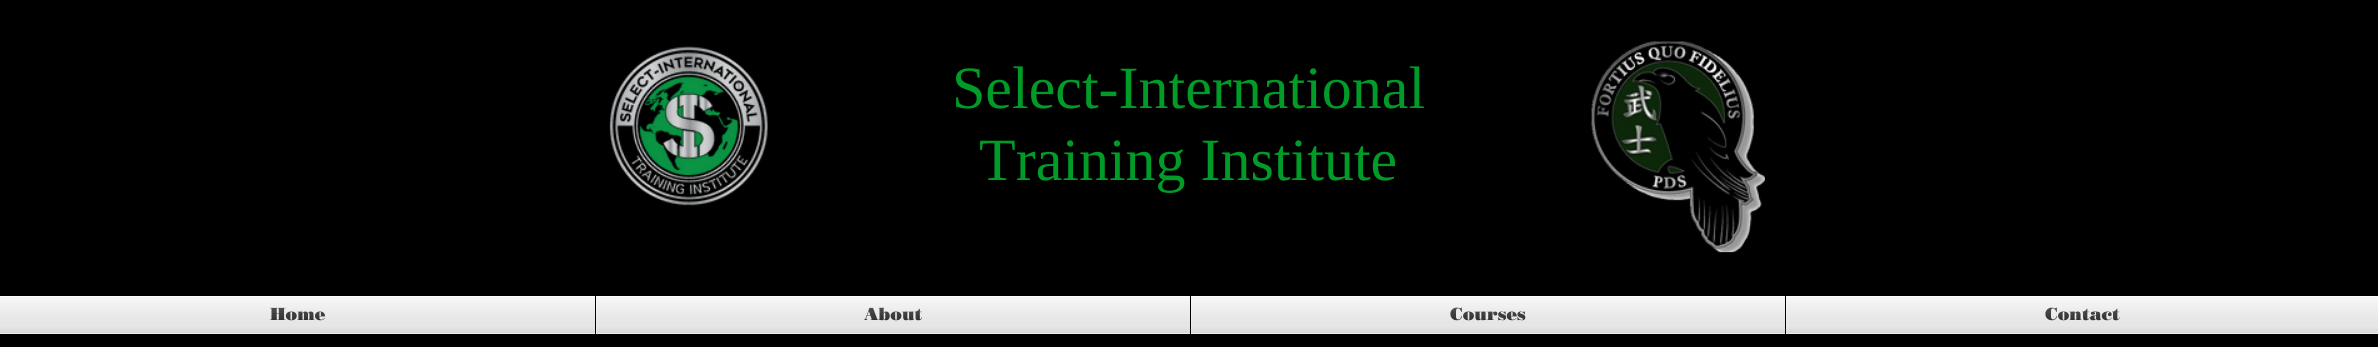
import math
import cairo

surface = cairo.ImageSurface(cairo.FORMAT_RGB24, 2378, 347)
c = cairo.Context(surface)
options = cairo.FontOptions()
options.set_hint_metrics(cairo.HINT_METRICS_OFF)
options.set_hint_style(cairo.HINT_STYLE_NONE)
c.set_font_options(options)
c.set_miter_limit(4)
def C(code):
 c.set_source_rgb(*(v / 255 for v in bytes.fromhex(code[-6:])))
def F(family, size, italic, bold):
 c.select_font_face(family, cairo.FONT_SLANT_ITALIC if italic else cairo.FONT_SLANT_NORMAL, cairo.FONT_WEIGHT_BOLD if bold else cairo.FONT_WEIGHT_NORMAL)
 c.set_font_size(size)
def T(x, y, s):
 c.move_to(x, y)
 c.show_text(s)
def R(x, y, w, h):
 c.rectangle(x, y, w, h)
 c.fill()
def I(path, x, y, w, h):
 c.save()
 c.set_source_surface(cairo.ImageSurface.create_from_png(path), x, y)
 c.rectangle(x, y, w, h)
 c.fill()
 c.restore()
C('000000')
c.paint()
I('1.png',609,46,159,160)
F('Liberation Serif',60,0,0)
C('009c27')
T(952,108,'Select-International')
T(979,180,'Training Institute')
I('2.png',1591,41,174,212)
C('ffffff')
R(0,296,595,38)
F('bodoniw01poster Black',17.5,0,0)
C('000000')
T(270,320,'Home')
I('3.png',270,307,55,14)
I('4.png',0,297,595,37)
C('ffffff')
R(596,296,594,38)
C('000000')
T(864,320,'About')
I('5.png',864,307,58,14)
I('6.png',596,297,594,37)
C('ffffff')
R(1191,296,594,38)
C('000000')
T(1450,320,'Courses')
I('7.png',1450,307,76,14)
I('8.png',1191,297,594,37)
C('ffffff')
R(1786,296,592,38)
C('000000')
T(2045,320,'Contact')
I('9.png',2045,307,75,14)
I('10.png',1786,297,592,37)
surface.write_to_png('o.png')
